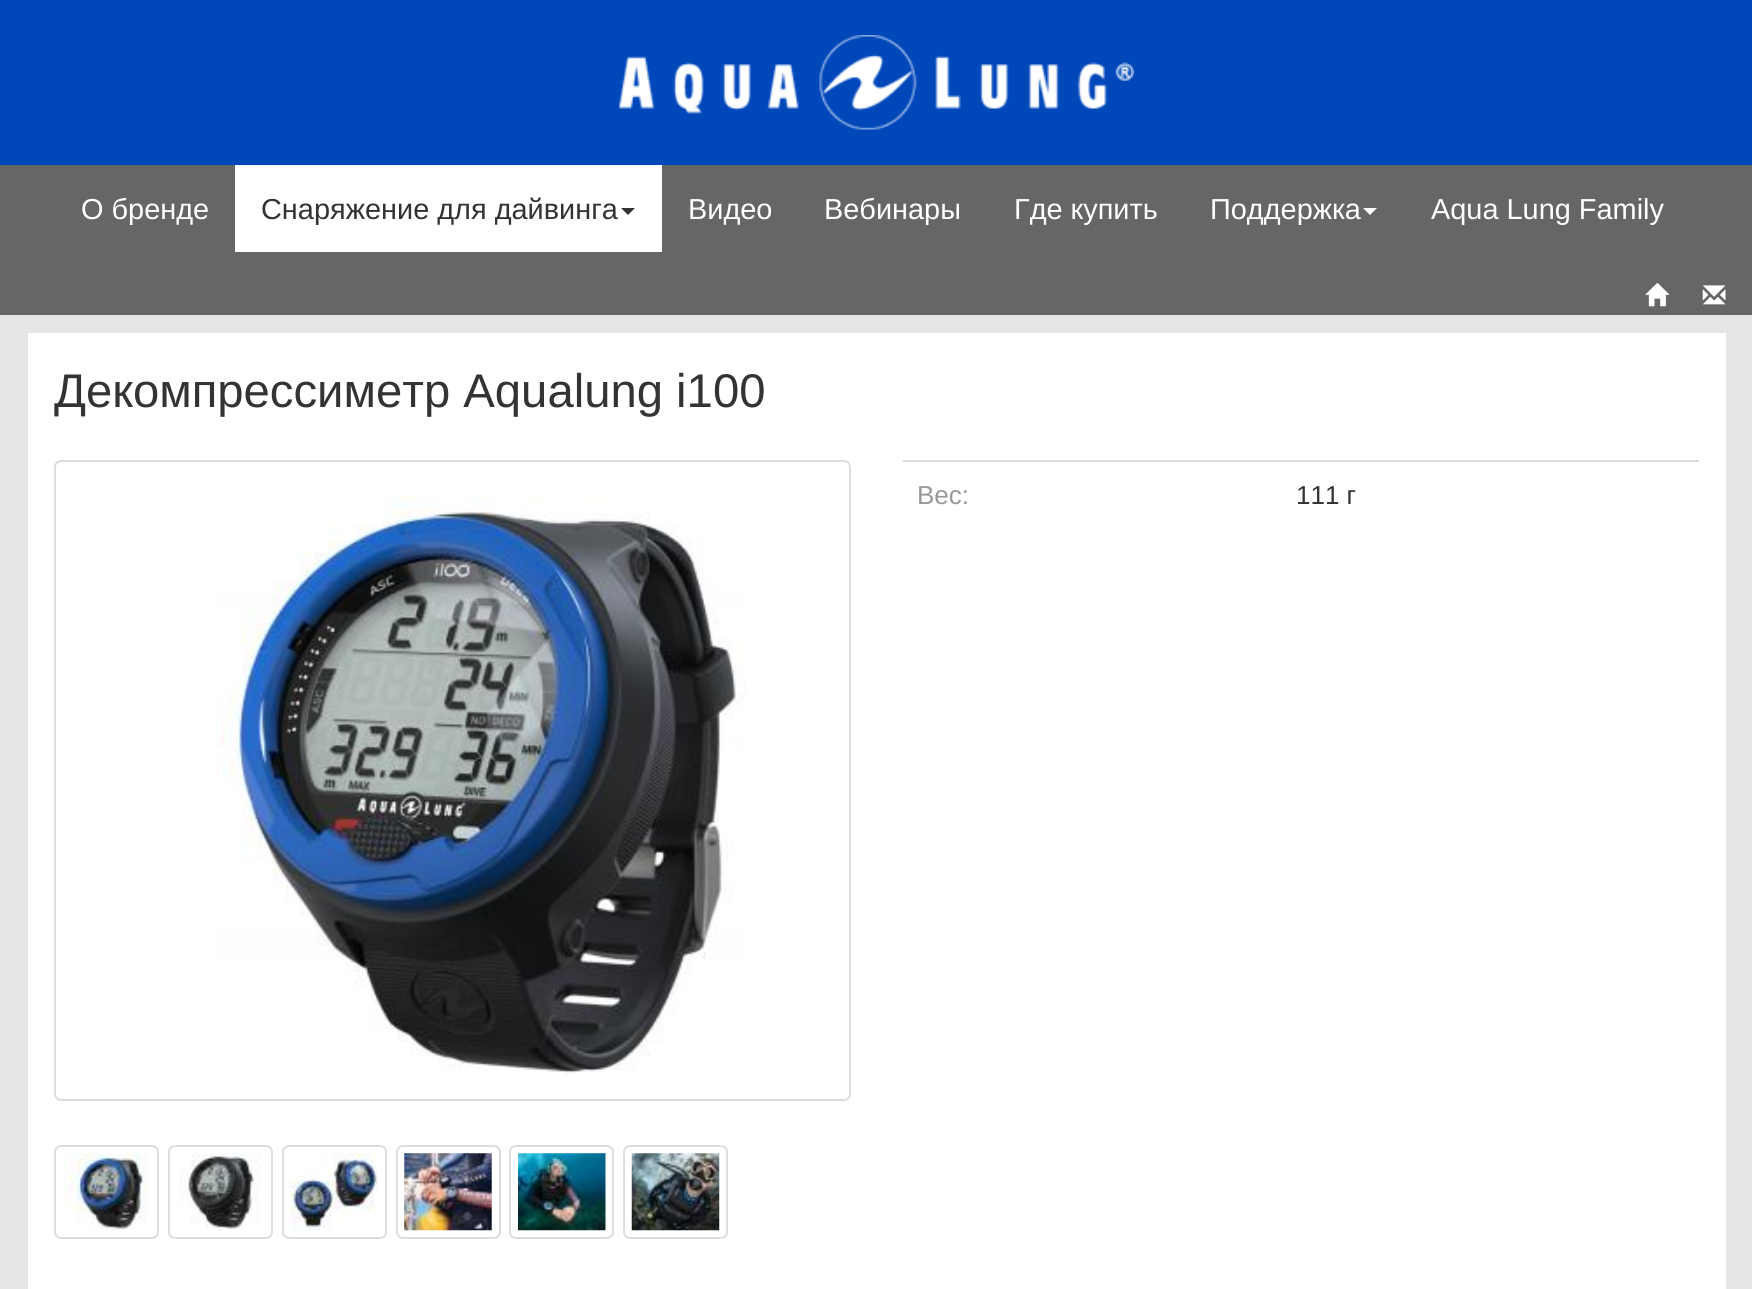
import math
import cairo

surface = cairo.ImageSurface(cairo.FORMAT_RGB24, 1752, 1289)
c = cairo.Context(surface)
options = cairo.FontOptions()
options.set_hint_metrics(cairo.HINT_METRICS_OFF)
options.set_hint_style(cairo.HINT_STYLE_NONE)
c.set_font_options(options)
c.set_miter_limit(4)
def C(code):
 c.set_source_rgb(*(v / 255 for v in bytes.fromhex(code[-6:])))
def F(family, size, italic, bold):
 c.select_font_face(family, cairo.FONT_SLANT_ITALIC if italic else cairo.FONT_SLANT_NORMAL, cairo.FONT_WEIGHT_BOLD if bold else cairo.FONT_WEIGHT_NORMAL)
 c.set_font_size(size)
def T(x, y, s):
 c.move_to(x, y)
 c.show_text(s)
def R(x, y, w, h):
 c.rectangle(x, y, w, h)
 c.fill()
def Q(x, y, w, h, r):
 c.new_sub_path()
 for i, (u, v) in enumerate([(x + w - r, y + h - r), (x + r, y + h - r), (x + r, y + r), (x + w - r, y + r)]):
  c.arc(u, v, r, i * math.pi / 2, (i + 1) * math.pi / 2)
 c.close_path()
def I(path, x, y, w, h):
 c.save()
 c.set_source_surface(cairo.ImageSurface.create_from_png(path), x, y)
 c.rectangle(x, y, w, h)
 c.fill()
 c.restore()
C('e6e6e6')
c.paint()
C('0047ba')
R(0,0,1752,165)
I('1.png',619,35,515,95)
C('666666')
R(0,165,1752,150)
F('Liberation Sans',28.9,0,0)
C('ffffff')
T(81,219,'О бренде')
R(235,165,427,87)
C('333333')
T(261,219,'Снаряжение для дайвинга')
c.new_path()
c.move_to(621,208)
c.line_to(635,208)
c.line_to(628,215)
c.close_path()
c.fill()
C('ffffff')
T(688,219,'Видео')
T(824,219,'Вебинары')
T(1014,219,'Где купить')
T(1210,219,'Поддержка')
c.new_path()
c.move_to(1363,208)
c.line_to(1377,208)
c.line_to(1370,215)
c.close_path()
c.fill()
T(1431,219,'Aqua Lung Family')
I('2.png',1645,282,25,25)
I('3.png',1702,285,24,20)
R(28,333,1698,956)
F('Liberation Sans',47.25,0,0)
C('333333')
T(54,407,'Декомпрессиметр Aqualung i100')
Q(55,461,795,639,6)
C('dddddd')
c.stroke()
I('4.png',216,496,531,578)
Q(55,1146,103,92,6)
c.stroke()
I('5.png',63,1153,85,77)
Q(169,1146,103,92,6)
c.stroke()
I('6.png',179,1153,82,77)
Q(283,1146,103,92,6)
c.stroke()
I('7.png',290,1153,88,78)
Q(397,1146,103,92,6)
c.stroke()
I('8.png',404,1153,88,78)
Q(510,1146,103,92,6)
c.stroke()
I('9.png',518,1153,88,78)
Q(624,1146,103,92,6)
c.stroke()
I('10.png',631,1153,89,78)
F('Liberation Sans',26,0,0)
C('999999')
T(917,504,'Вес:')
C('dddddd')
R(903,460,796,2)
C('333333')
T(1296,504,'111 г')
surface.write_to_png('o.png')
